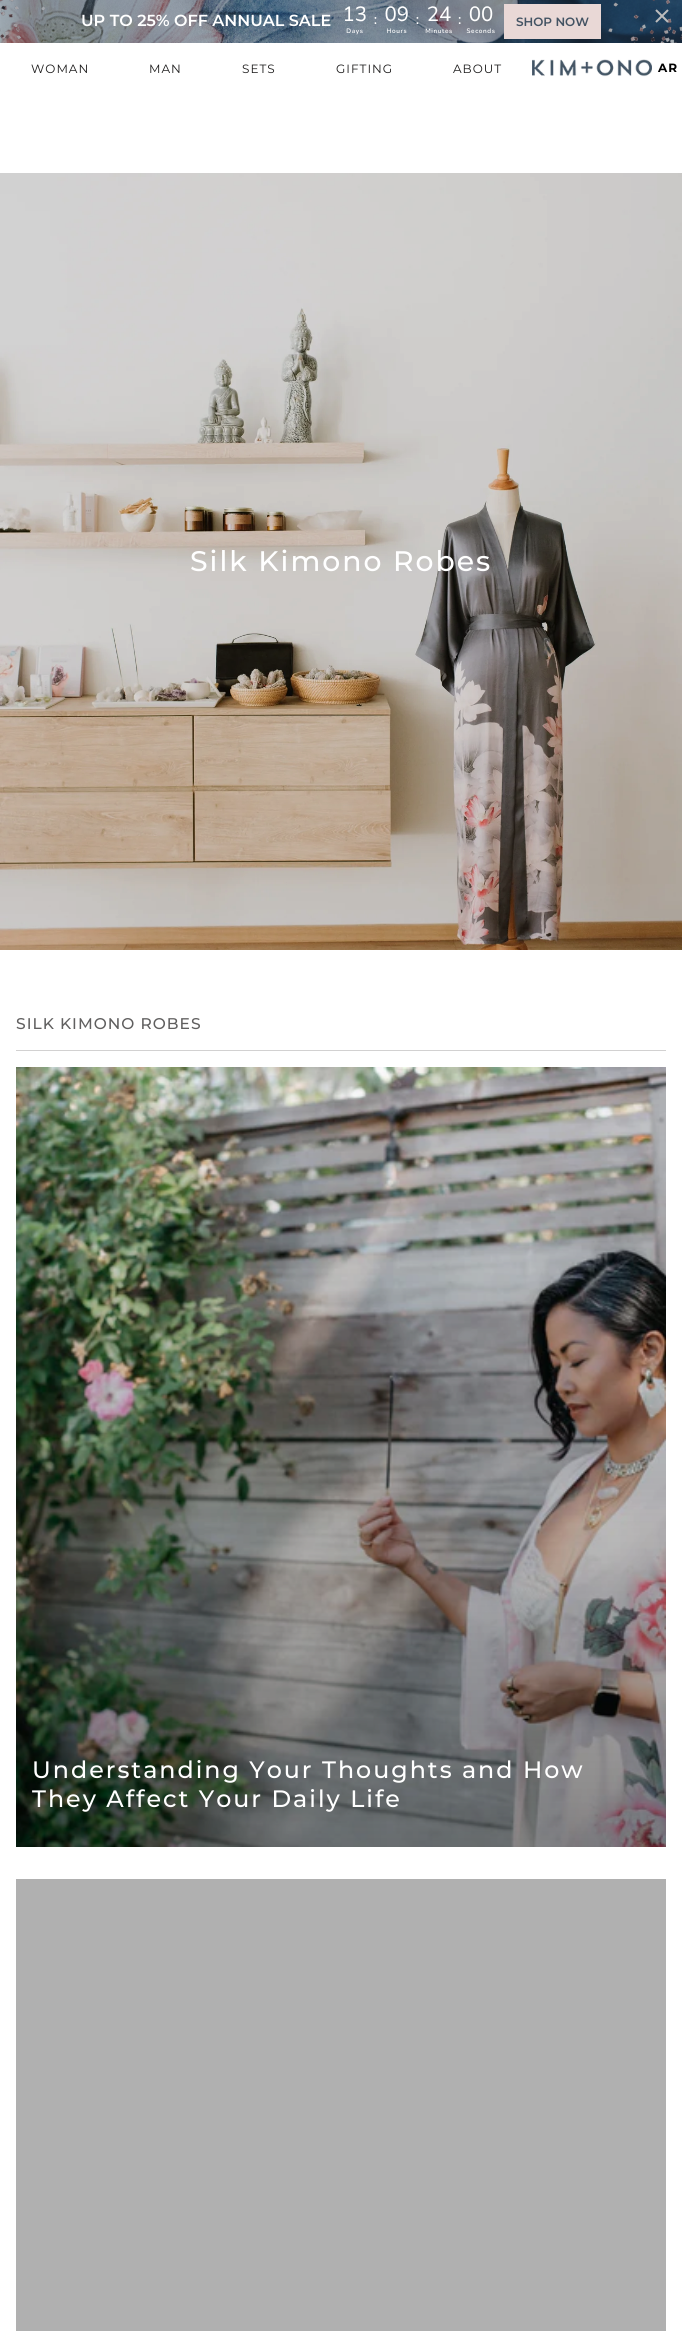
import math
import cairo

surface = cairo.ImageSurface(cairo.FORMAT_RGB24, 682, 2331)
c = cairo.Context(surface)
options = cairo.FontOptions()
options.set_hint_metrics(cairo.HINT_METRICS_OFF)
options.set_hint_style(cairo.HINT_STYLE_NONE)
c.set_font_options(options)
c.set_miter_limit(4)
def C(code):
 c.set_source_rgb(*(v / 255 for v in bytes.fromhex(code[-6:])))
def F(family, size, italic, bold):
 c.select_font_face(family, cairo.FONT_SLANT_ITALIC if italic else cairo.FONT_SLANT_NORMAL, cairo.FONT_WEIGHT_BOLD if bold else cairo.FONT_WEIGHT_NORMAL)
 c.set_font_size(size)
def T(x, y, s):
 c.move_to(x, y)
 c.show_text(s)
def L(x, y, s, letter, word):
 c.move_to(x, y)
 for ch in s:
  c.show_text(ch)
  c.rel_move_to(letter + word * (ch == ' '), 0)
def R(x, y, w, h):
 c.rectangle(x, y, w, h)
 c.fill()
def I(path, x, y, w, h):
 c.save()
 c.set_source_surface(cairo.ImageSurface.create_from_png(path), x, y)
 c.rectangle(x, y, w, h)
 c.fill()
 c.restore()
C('ffffff')
c.paint()
I('1.png',0,0,682,43)
F('Montserrat SemiBold',16,0,0)
C('ffffff')
T(81,26,'UP TO 25% OFF ANNUAL SALE')
I('2.png',345,6,150,29)
C('e9d8d6')
R(504,4,97,35)
F('Montserrat SemiBold',12,0,0)
C('435363')
T(516,26,'SHOP NOW')
I('3.png',655,9,14,14)
F('Montserrat',12,0,0)
C('1c1b1b')
L(31,73,'WOMAN',1,0)
L(149,73,'MAN',1,0)
L(242,73,'SETS',1,0)
L(336,73,'GIFTING',1,0)
L(453,73,'ABOUT',1,0)
I('4.png',532,59,120,18)
F('Montserrat',12,0,1)
C('000000')
L(658,72,'AR',1,0)
I('5.png',0,173,682,777)
F('Montserrat Medium',28.25,0,0)
C('ffffff')
L(190,571,'Silk Kimono Robes',2,0)
F('Montserrat Medium',15.5,0,0)
C('605f5f')
L(16,1029,'SILK KIMONO ROBES',1,0)
C('d2d1d1')
R(16,1050,650,1)
I('6.png',16,1067,650,780)
F('Montserrat Medium',23.75,0,0)
C('ffffff')
L(32,1778,'Understanding Your Thoughts and How',2,0)
L(32,1807,'They Affect Your Daily Life',2,0)
C('b0b0b0')
R(16,1879,650,452)
surface.write_to_png('o.png')
